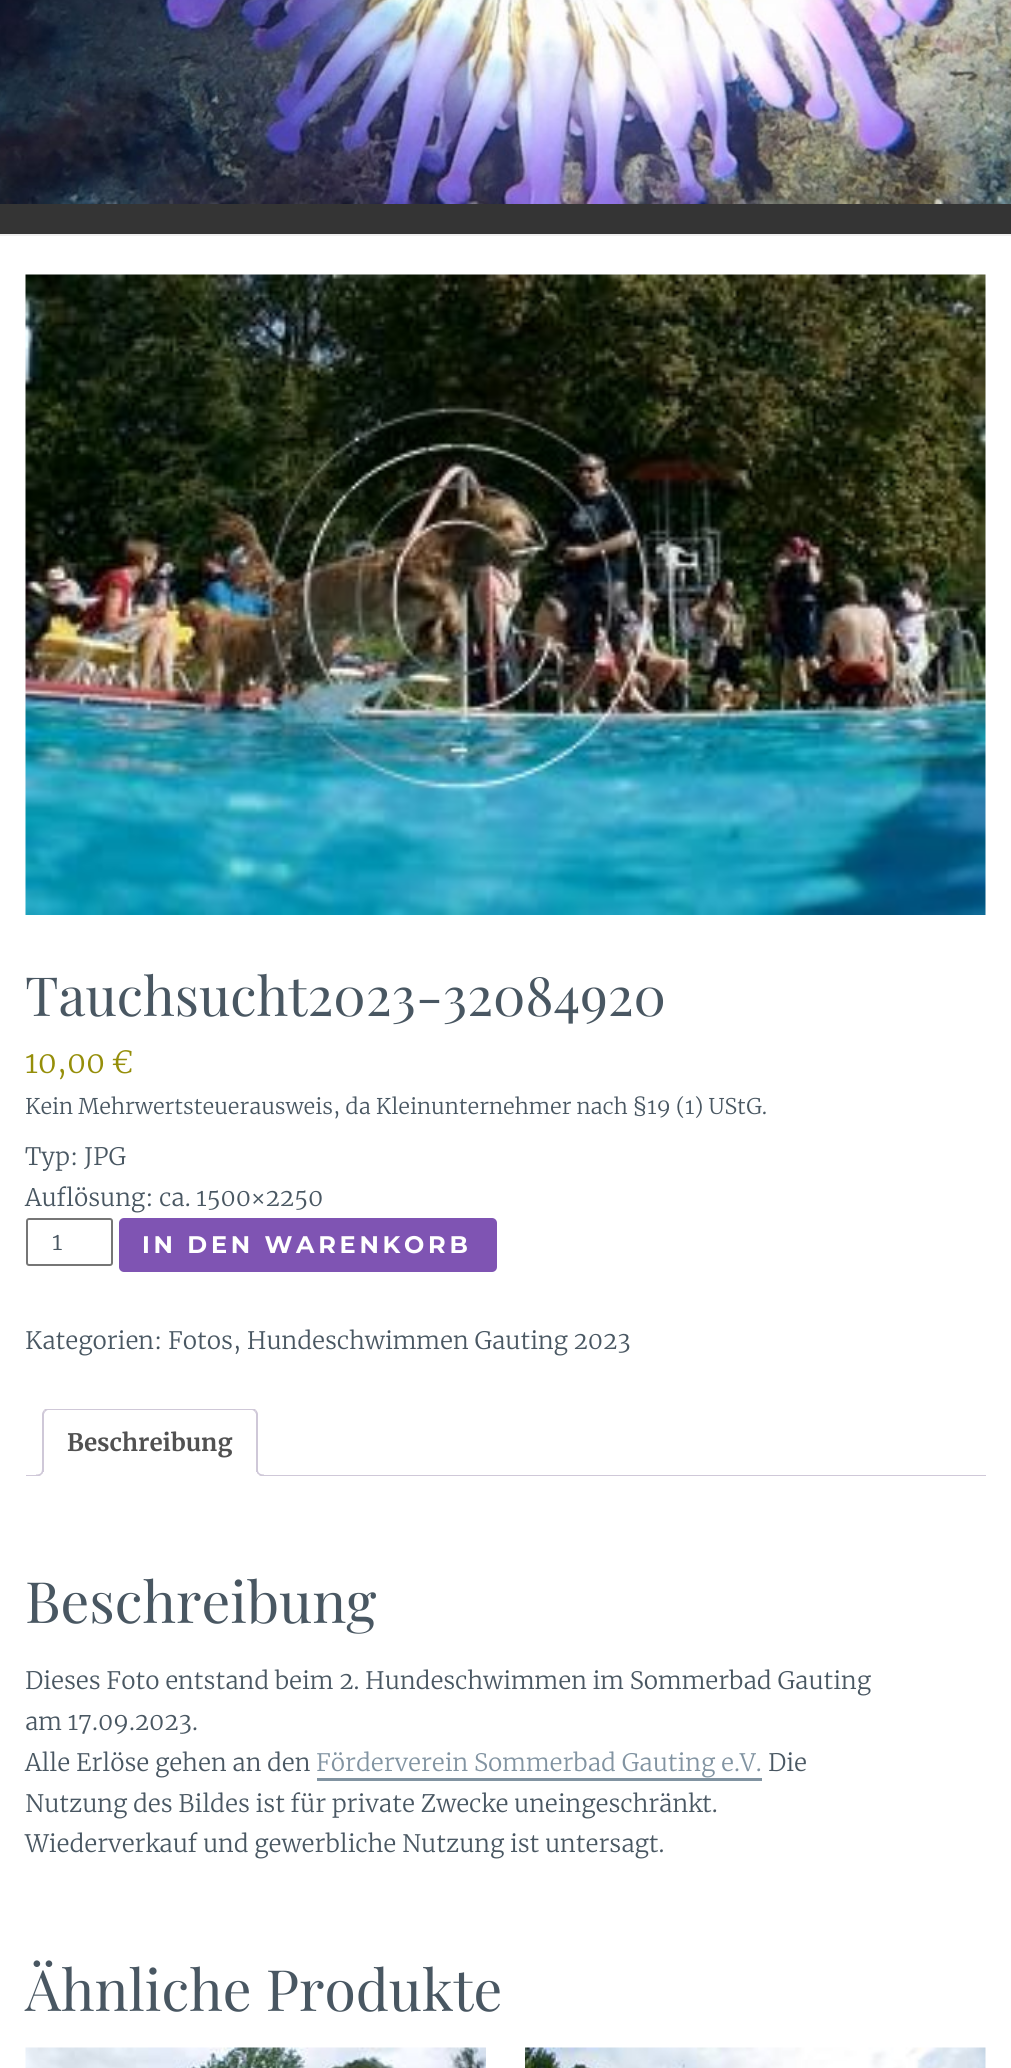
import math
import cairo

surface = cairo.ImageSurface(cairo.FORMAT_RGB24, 1011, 2068)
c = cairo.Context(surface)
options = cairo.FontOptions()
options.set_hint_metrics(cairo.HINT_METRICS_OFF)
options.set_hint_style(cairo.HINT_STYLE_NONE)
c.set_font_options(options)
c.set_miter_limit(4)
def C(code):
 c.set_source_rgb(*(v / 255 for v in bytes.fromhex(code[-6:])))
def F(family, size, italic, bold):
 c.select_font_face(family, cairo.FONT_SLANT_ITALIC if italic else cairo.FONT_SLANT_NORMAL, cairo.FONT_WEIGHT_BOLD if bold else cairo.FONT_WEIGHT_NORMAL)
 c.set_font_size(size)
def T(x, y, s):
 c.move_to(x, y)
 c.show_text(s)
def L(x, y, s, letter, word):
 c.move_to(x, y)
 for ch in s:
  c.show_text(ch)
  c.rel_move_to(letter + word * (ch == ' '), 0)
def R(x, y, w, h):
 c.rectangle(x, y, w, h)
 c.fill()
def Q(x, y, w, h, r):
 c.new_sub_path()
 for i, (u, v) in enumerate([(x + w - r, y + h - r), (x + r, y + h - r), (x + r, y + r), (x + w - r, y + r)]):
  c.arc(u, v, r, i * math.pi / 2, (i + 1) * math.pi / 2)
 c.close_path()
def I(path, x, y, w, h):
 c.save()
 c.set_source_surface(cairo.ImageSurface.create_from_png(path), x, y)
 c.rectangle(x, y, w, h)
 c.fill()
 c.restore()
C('ffffff')
c.paint()
C('343434')
R(0,204,1011,30)
I('1.png',0,0,1011,204)
C('eeeeee')
R(0,234,1011,2)
I('2.png',25,274,961,641)
F('Playfair Display',54,0,0)
C('495762')
T(25,1016,'Tauchsucht2023-32084920')
F('Merriweather Light',30,0,0)
C('958e09')
T(25,1073,'10,00 €')
F('Merriweather Light',21.6,0,0)
C('495762')
T(25,1114,'Kein Mehrwertsteuerausweis, da Kleinunternehmer nach §19 (1) UStG.')
F('Merriweather Light',24,0,0)
T(25,1165,'Typ: JPG')
T(25,1206,'Auflösung: ca. 1500×2250')
Q(27,1219,85,46,2)
C('767676')
c.stroke()
C('495762')
T(52,1250,'1')
C('7f54b3')
Q(119,1218,378,54,5)
c.fill()
F('Montserrat',24,0,1)
C('ffffff')
L(142,1253,'IN DEN WARENKORB',3.75,0)
F('Merriweather Light',24,0,0)
C('495762')
T(25,1349,'Kategorien: Fotos, Hundeschwimmen Gauting 2023')
C('cfc8d8')
R(26,1475,960,1)
C('ffffff')
c.new_path()
c.move_to(48,1409)
c.line_to(252,1409)
c.curve_to(255.5,1409,258,1411.5,258,1415)
c.line_to(258,1476)
c.line_to(42,1476)
c.line_to(42,1415)
c.curve_to(42,1411.5,44.5,1409,48,1409)
c.close_path()
c.fill()
c.save()
c.rectangle(26,1409,960,67)
c.clip()
C('cfc8d8')
c.new_path()
c.move_to(48,1410)
c.curve_to(47,1410,46,1411,45,1412)
c.line_to(44,1410)
c.line_to(46,1408)
c.line_to(219,1408)
c.curve_to(232,1408,248,1401,256,1410)
c.line_to(255,1412)
c.curve_to(254,1411,253,1410,252,1410)
c.close_path()
c.fill()
c.restore()
C('cfc8d8')
c.new_path()
c.move_to(258,1476)
c.line_to(258,1414)
c.curve_to(258,1413,257,1411,256,1410)
c.line_to(255,1412)
c.line_to(256,1414)
c.line_to(256,1474)
c.close_path()
c.fill()
C('ffffff')
c.new_path()
c.move_to(258,1476)
c.line_to(256,1474)
c.line_to(44,1474)
c.line_to(42,1476)
c.close_path()
c.fill()
C('cfc8d8')
c.new_path()
c.move_to(42,1476)
c.line_to(44,1474)
c.line_to(44,1414)
c.line_to(45,1412)
c.line_to(44,1410)
c.curve_to(43,1411,42,1413,42,1414)
c.close_path()
c.fill()
F('Merriweather',24,0,1)
C('515151')
T(67,1451,'Beschreibung')
c.save()
c.rectangle(26,1409,960,67)
c.clip()
C('ffffff')
c.new_path()
c.move_to(39,1476)
c.line_to(39,1479)
c.curve_to(44,1479,47,1477.5,47,1472)
c.line_to(43,1472)
c.curve_to(42.5,1474,41,1475.5,39,1476)
c.close_path()
c.fill()
c.restore()
C('cfc8d8')
c.set_fill_rule(cairo.FILL_RULE_EVEN_ODD)
c.new_path()
c.move_to(36,1468.5)
c.line_to(43.5,1468.5)
c.curve_to(43.5,1474,41.5,1476,36,1476)
c.close_path()
c.move_to(36,1468.5)
c.line_to(42,1468.5)
c.curve_to(42,1473,40.5,1474.5,36,1474.5)
c.close_path()
c.fill()
c.save()
c.set_fill_rule(cairo.FILL_RULE_WINDING)
c.rectangle(26,1409,960,67)
c.clip()
C('ffffff')
c.new_path()
c.move_to(254,1472)
c.curve_to(254,1476.5,256.5,1479,261,1479)
c.line_to(261,1476)
c.curve_to(259,1475.5,257.5,1474,257,1472)
c.close_path()
c.fill()
c.restore()
c.new_path()
c.move_to(256.5,1468.5)
c.line_to(264,1468.5)
c.line_to(264,1476)
c.curve_to(260,1476,256.5,1474.5,256.5,1470)
c.close_path()
c.move_to(258,1468.5)
c.line_to(264,1468.5)
c.line_to(264,1474.5)
c.curve_to(261,1474.5,258,1473.5,258,1470)
c.close_path()
c.fill()
F('Playfair Display',57,0,0)
C('495762')
T(25,1623,'Beschreibung')
F('Merriweather Light',24,0,0)
T(25,1689,'Dieses Foto entstand beim 2. Hundeschwimmen im Sommerbad Gauting')
T(25,1730,'am 17.09.2023.')
T(25,1771,'Alle Erlöse gehen an den')
C('8193a1')
T(316,1771,'Förderverein Sommerbad Gauting e.V.')
R(317,1778,445,3)
C('495762')
T(768,1771,'Die')
T(25,1812,'Nutzung des Bildes ist für private Zwecke uneingeschränkt.')
T(25,1852,'Wiederverkauf und gewerbliche Nutzung ist untersagt.')
F('Playfair Display',57,0,0)
T(25,2011,'Ähnliche Produkte')
I('3.png',25,2047,461,21)
I('4.png',525,2047,461,21)
surface.write_to_png('o.png')
